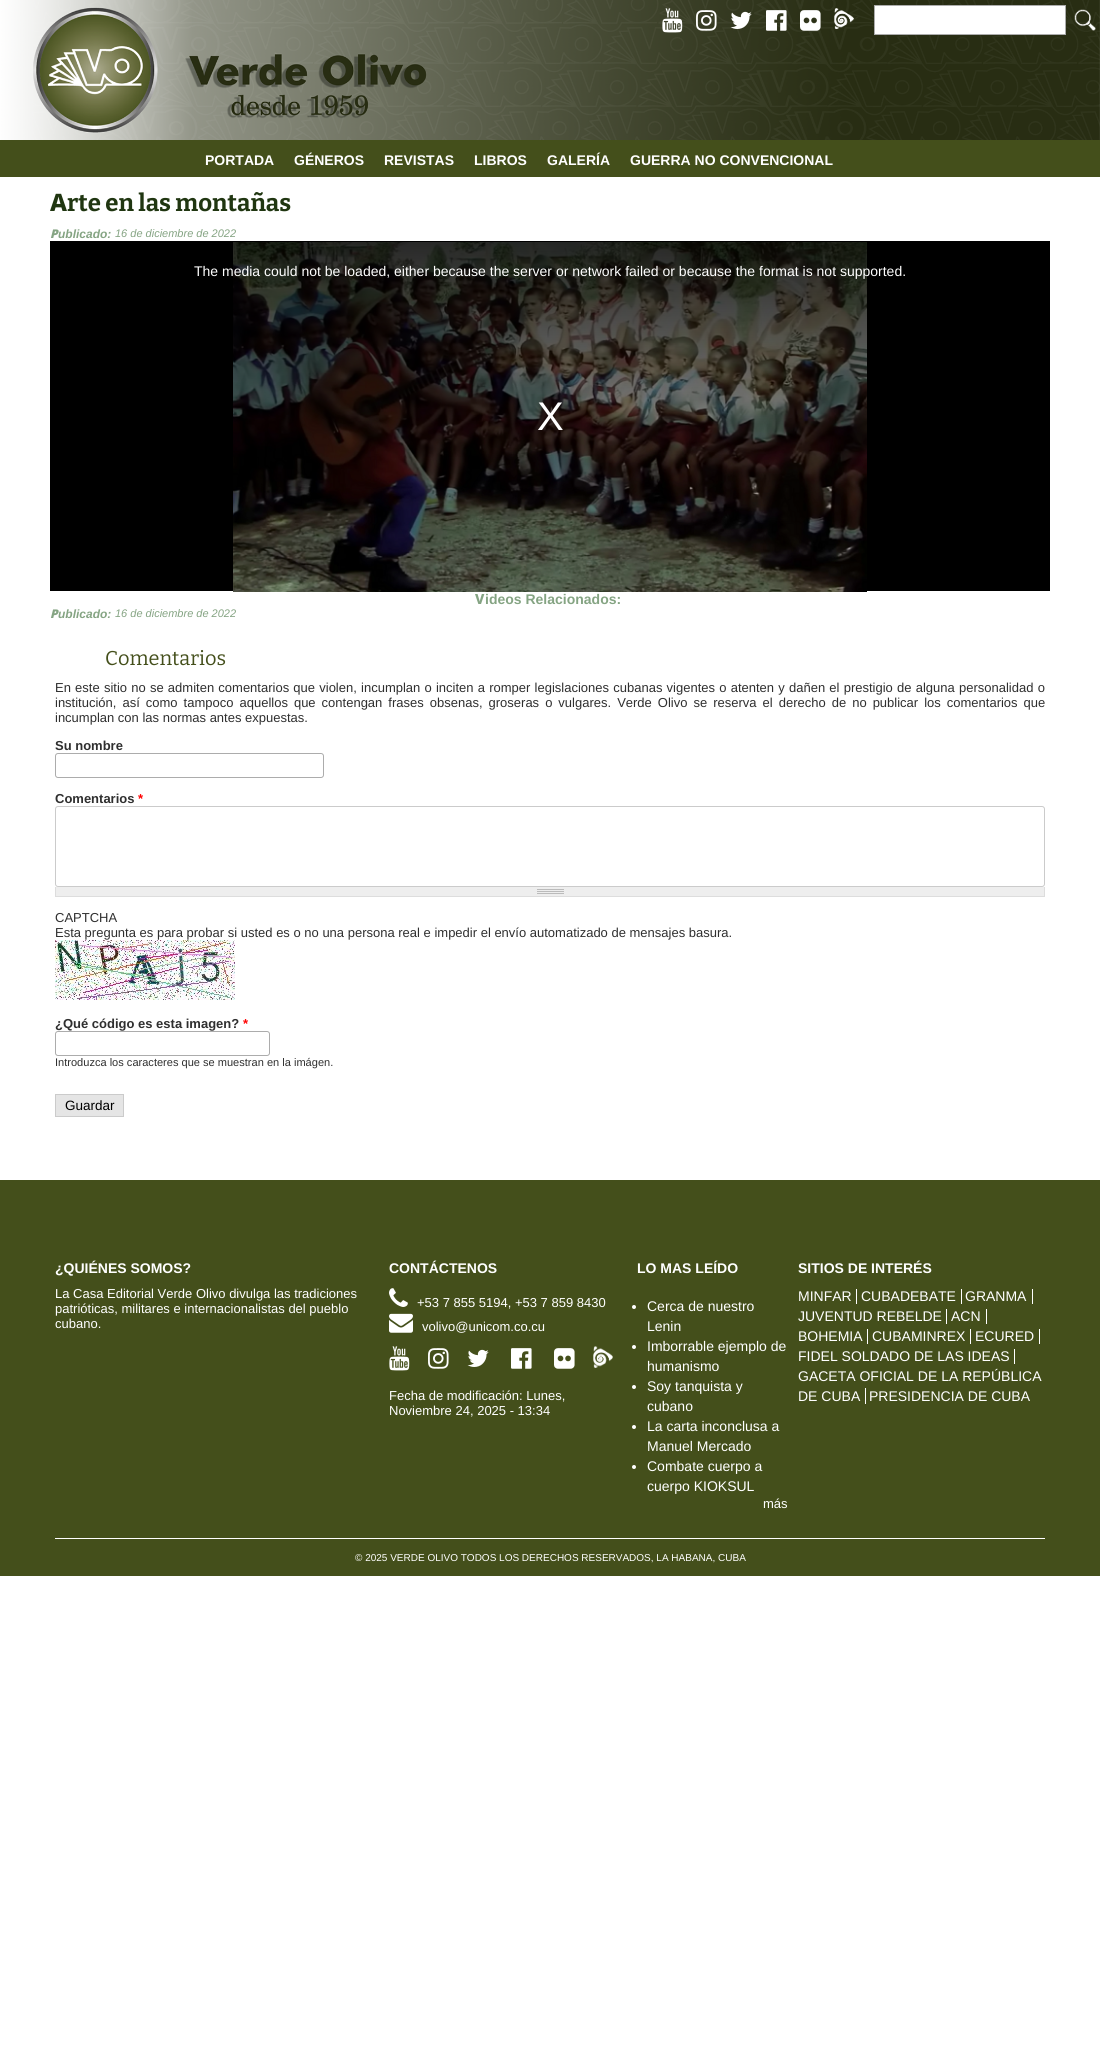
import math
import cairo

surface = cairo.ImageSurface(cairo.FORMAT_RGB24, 1100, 2060)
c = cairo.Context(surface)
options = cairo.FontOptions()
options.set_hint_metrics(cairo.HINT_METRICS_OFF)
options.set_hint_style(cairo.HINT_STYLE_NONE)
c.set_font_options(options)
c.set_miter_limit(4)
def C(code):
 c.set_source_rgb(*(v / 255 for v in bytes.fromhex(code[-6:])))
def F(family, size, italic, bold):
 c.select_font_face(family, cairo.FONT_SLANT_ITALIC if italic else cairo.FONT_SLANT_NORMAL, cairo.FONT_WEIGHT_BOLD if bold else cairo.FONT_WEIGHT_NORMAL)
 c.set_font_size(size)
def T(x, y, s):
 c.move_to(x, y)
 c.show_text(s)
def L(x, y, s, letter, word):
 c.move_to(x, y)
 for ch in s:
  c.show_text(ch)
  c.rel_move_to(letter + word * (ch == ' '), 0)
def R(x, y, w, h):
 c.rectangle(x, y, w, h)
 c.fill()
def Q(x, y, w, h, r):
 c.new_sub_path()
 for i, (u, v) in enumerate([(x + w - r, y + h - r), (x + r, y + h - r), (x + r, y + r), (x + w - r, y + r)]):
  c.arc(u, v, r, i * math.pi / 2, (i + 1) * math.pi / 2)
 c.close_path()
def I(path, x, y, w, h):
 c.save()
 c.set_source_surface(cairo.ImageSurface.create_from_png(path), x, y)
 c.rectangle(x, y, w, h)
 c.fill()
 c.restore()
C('ffffff')
c.paint()
C('444f1b')
R(0,140,1100,37)
I('1.png',0,0,1100,140)
I('2.png',662,8,21,25)
I('3.png',696,10,21,21)
I('4.png',730,11,22,18)
I('5.png',766,10,21,21)
I('6.png',800,10,21,21)
I('7.png',834,8,20,21)
I('8.png',834,8,20,21)
C('ffffff')
c.rectangle(874.5,5.5,191,29)
c.fill_preserve()
C('acacac')
c.set_line_width(1)
c.stroke()
I('9.png',1074,9,22,22)
F('Liberation Sans',14,0,1)
C('ffffff')
T(205,165,'PORTADA')
T(294,165,'GÉNEROS')
T(384,165,'REVISTAS')
T(474,165,'LIBROS')
T(547,165,'GALERÍA')
T(630,165,'GUERRA NO CONVENCIONAL')
F('Noto Sans ExtraBold',24,0,0)
C('203611')
T(50,211,'A')
F('Bitter',24,0,1)
T(67,211,'rte en las montañas')
F('Noto Sans Black',12,1,0)
C('85a483')
T(50,238,'P')
F('Liberation Sans',12,1,1)
T(58,238,'ublicado:')
F('Liberation Sans',11,1,0)
T(115,237,'16 de diciembre de 2022')
C('000000')
R(50,241,1000,350)
I('10.png',233,242,634,350)
gradient = cairo.LinearGradient(550,241,550,591)
gradient.add_color_stop_rgba(0,0,0,0,.8)
gradient.add_color_stop_rgba(1,0,0,0,0)
c.set_source(gradient)
R(233,242,634,340)
F('Liberation Sans',14,0,0)
C('ffffff')
T(194,276,'The media could not be loaded, either because the server or network failed or because the format is not supported.')
F('Liberation Sans',40,0,0)
T(537,430,'X')
F('Noto Sans ExtraBold',14,0,0)
C('85a483')
T(475,604,'V')
F('Liberation Sans',14,0,1)
T(485,604,'ideos Relacionados:')
F('Noto Sans Black',12,1,0)
T(50,618,'P')
F('Liberation Sans',12,1,1)
T(58,618,'ublicado:')
F('Liberation Sans',11,1,0)
T(115,617,'16 de diciembre de 2022')
F('Bitter',20,0,0)
C('444f1b')
T(105,665,'Comentarios')
F('Liberation Sans',13,0,0)
C('2f2f2f')
L(55,692,'En este sitio no se admiten comentarios que violen, incumplan o inciten a romper legislaciones cubanas vigentes o atenten y dañen el prestigio de alguna personalidad o',0,.6)
L(55,707,'institución, así como tampoco aquellos que contengan frases obsenas, groseras o vulgares. Verde Olivo se reserva el derecho de no publicar los comentarios que',0,2.4)
T(55,722,'incumplan con las normas antes expuestas.')
F('Liberation Sans',13,0,1)
T(55,750,'Su nombre')
Q(55.5,753.5,268,24,2.5)
C('acacac')
c.stroke()
C('2f2f2f')
T(55,803,'Comentarios')
C('ff0000')
T(138,803,'*')
Q(55.5,806.5,989,80,2.5)
C('cbcbcb')
c.stroke()
C('eeeeee')
R(56,887,988,9)
I('11.png',537,889,27,5)
C('dddddd')
R(1044,887,1,10)
R(55,896,990,1)
R(55,887,1,10)
F('Liberation Sans',13,0,0)
C('2f2f2f')
T(55,922,'CAPTCHA')
T(55,937,'Esta pregunta es para probar si usted es o no una persona real e impedir el envío automatizado de mensajes basura.')
I('12.png',55,940,180,60)
F('Liberation Sans',13,0,1)
T(55,1028,'¿Qué código es esta imagen?')
C('ff0000')
T(243,1028,'*')
Q(55.5,1031.5,214,24,2.5)
C('acacac')
c.stroke()
F('Liberation Sans',11.05,0,0)
C('2f2f2f')
T(55,1066,'Introduzca los caracteres que se muestran en la imágen.')
C('e5e5e5')
c.rectangle(55.5,1094.5,68,22)
c.fill_preserve()
C('cbcbcb')
c.stroke()
F('Liberation Sans',13.5,0,0)
C('000000')
T(65,1110,'Guardar')
C('444f1b')
R(0,1180,1100,396)
F('Liberation Sans',14,0,1)
C('ffffff')
T(55,1273,'¿QUIÉNES SOMOS?')
F('Liberation Sans',13,0,0)
T(55,1298,'La Casa Editorial Verde Olivo divulga las tradiciones')
T(55,1313,'patrióticas, militares e internacionalistas del pueblo')
T(55,1328,'cubano.')
F('Liberation Sans',14,0,1)
T(389,1273,'CONTÁCTENOS')
I('13.png',389,1288,19,19)
F('Liberation Sans',13,0,0)
T(417,1307,'+53 7 855 5194, +53 7 859 8430')
I('14.png',389,1313,24,20)
T(422,1331,'volivo@unicom.co.cu')
I('15.png',389,1346,21,25)
I('16.png',428,1348,21,21)
I('17.png',467,1349,22,18)
I('18.png',511,1348,21,21)
I('19.png',554,1348,21,21)
I('20.png',593,1347,20,21)
I('21.png',593,1346,20,21)
T(389,1400,'Fecha de modificación: Lunes,')
T(389,1415,'Noviembre 24, 2025 - 13:34')
F('Liberation Sans',14,0,1)
T(637,1273,'LO MAS LEÍDO')
c.new_path()
c.arc(634,1307,2,0,2 * math.pi)
c.fill()
F('Liberation Sans',14,0,0)
T(647,1311,'Cerca de nuestro')
T(647,1331,'Lenin')
c.new_path()
c.arc(634,1347,2,0,2 * math.pi)
c.fill()
T(647,1351,'Imborrable ejemplo de')
T(647,1371,'humanismo')
c.new_path()
c.arc(634,1387,2,0,2 * math.pi)
c.fill()
T(647,1391,'Soy tanquista y')
T(647,1411,'cubano')
c.new_path()
c.arc(634,1427,2,0,2 * math.pi)
c.fill()
T(647,1431,'La carta inconclusa a')
T(647,1451,'Manuel Mercado')
c.new_path()
c.arc(634,1467,2,0,2 * math.pi)
c.fill()
T(647,1471,'Combate cuerpo a')
T(647,1491,'cuerpo KIOKSUL')
F('Liberation Sans',13,0,0)
T(763,1508,'más')
F('Liberation Sans',14,0,1)
T(798,1273,'SITIOS DE INTERÉS')
F('Liberation Sans',14,0,0)
T(798,1301,'MINFAR')
R(856,1289,1,15)
T(861,1301,'CUBADEBATE')
R(961,1289,1,15)
T(965,1301,'GRANMA')
R(1032,1289,1,15)
T(798,1321,'JUVENTUD REBELDE')
R(946,1309,1,15)
T(951,1321,'ACN')
R(986,1309,1,15)
T(798,1341,'BOHEMIA')
R(867,1329,1,15)
T(872,1341,'CUBAMINREX')
R(970,1329,1,15)
T(975,1341,'ECURED')
R(1039,1329,1,15)
T(798,1361,'FIDEL SOLDADO DE LAS IDEAS')
R(1014,1349,1,15)
T(798,1381,'GACETA OFICIAL DE LA REPÚBLICA')
T(798,1401,'DE CUBA')
R(865,1388,1,16)
T(869,1401,'PRESIDENCIA DE CUBA')
R(55,1538,990,1)
F('Liberation Sans',10,0,0)
T(355,1561,'© 2025 VERDE OLIVO TODOS LOS DERECHOS RESERVADOS, LA HABANA, CUBA')
surface.write_to_png('o.png')
